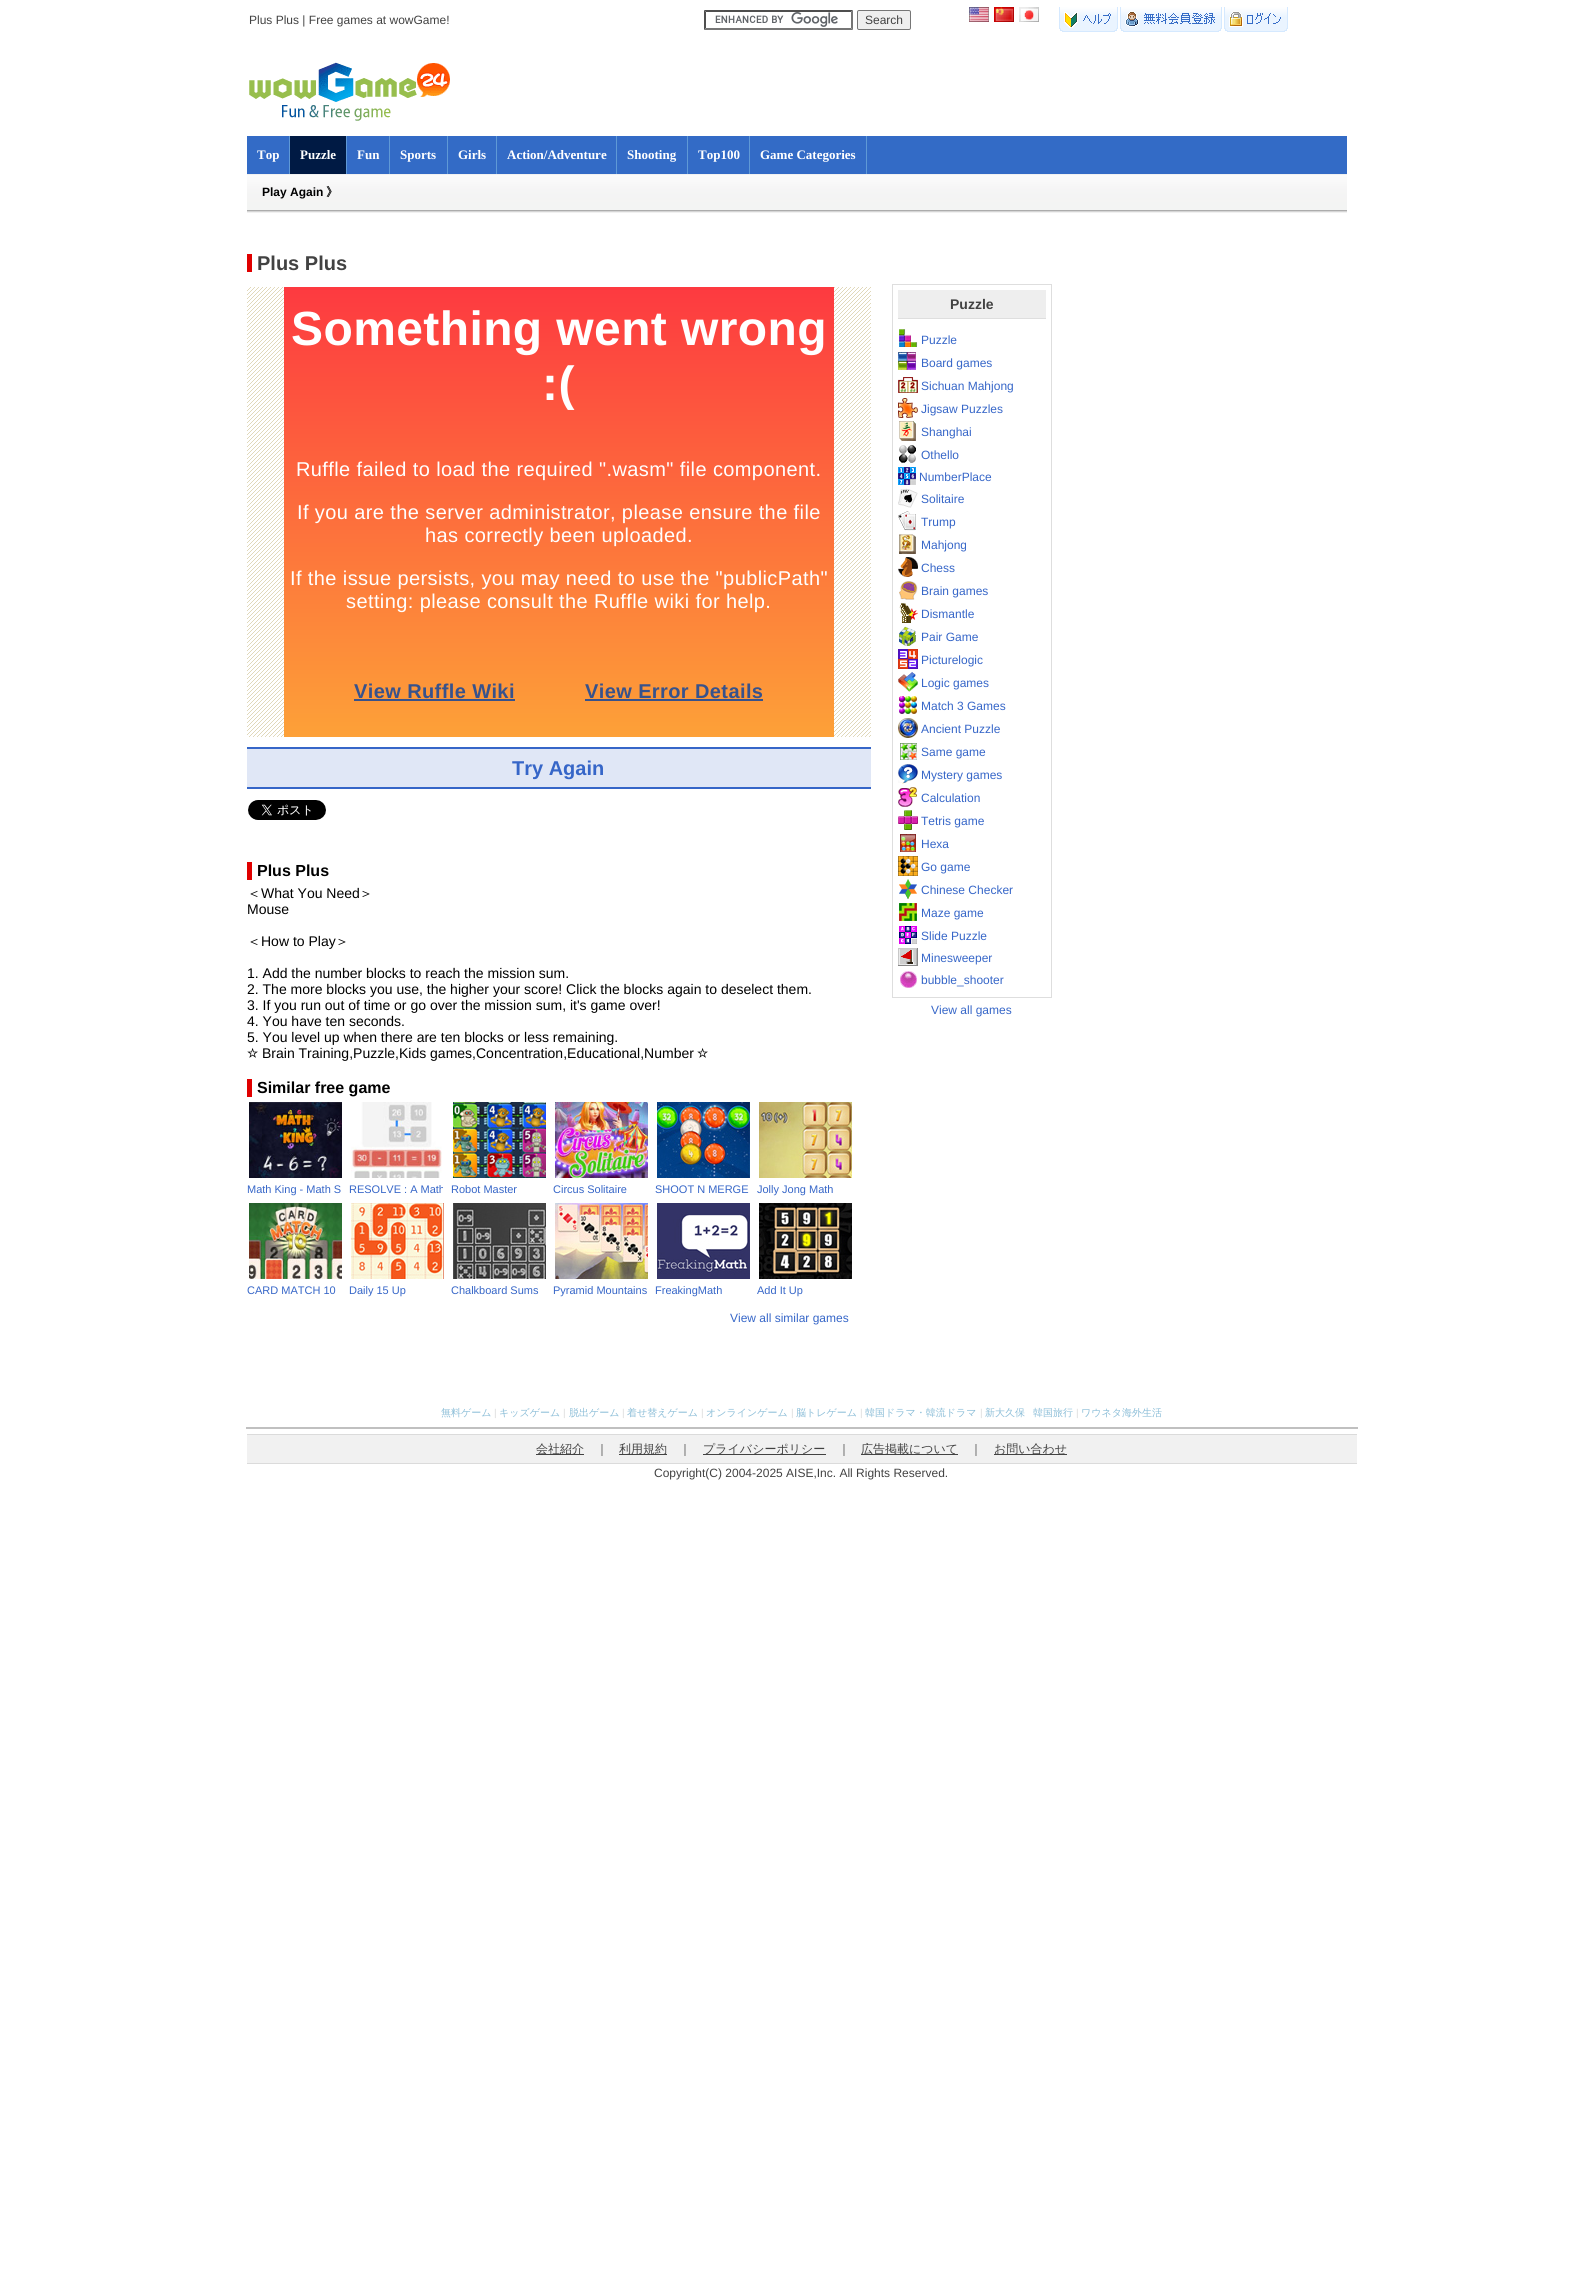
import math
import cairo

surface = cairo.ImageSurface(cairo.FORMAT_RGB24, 1593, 2293)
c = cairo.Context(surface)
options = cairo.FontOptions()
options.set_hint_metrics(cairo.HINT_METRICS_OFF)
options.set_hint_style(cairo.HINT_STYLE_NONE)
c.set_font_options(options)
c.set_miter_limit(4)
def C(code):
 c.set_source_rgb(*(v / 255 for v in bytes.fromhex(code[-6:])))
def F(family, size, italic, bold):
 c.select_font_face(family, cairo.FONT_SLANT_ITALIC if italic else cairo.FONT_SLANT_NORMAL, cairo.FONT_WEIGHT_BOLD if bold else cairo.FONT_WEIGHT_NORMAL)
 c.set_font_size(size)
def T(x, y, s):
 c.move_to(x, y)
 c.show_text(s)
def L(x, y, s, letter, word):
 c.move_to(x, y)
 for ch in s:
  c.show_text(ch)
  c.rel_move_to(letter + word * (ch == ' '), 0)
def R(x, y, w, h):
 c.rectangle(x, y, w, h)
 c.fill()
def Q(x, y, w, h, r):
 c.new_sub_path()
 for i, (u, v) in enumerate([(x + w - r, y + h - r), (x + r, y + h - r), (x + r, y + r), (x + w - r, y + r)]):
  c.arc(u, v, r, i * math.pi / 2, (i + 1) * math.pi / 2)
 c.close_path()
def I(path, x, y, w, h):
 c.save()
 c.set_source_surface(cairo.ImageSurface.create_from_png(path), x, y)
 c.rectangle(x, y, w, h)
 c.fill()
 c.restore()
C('ffffff')
c.paint()
F('Liberation Sans',12,0,0)
C('424242')
T(249,24,'Plus Plus | Free games at wowGame!')
I('1.png',715,12,123,15)
C('4f4f4f')
c.new_path()
c.move_to(704,10)
c.line_to(853,10)
c.line_to(851,12)
c.line_to(706,12)
c.close_path()
c.fill()
C('767676')
c.new_path()
c.move_to(853,10)
c.line_to(853,30)
c.line_to(851,28)
c.line_to(851,12)
c.close_path()
c.fill()
c.new_path()
c.move_to(853,30)
c.line_to(704,30)
c.line_to(706,28)
c.line_to(851,28)
c.close_path()
c.fill()
C('4f4f4f')
c.new_path()
c.move_to(704,30)
c.line_to(704,10)
c.line_to(706,12)
c.line_to(706,28)
c.close_path()
c.fill()
C('efefef')
Q(857.5,10.5,53,19,1.5)
c.fill_preserve()
C('767676')
c.set_line_width(1)
c.stroke()
C('424242')
T(865,24,'Search')
I('2.png',969,7,20,15)
I('3.png',994,7,20,15)
I('4.png',1019,7,20,15)
I('5.png',1059,7,229,25)
I('6.png',249,62,201,59)
C('336bc6')
R(247,136,1100,38)
C('5f99d6')
R(289,136,1,38)
F('Liberation Serif',13,0,1)
C('ffffff')
T(257,159,'Top')
C('001a44')
R(290,136,56,38)
C('5f99d6')
R(346,136,1,38)
C('ffffff')
T(300,159,'Puzzle')
C('5f99d6')
R(389,136,1,38)
C('ffffff')
T(357,159,'Fun')
C('5f99d6')
R(447,136,1,38)
C('ffffff')
T(400,159,'Sports')
C('5f99d6')
R(496,136,1,38)
C('ffffff')
T(458,159,'Girls')
C('5f99d6')
R(616,136,1,38)
C('ffffff')
T(507,159,'Action/Adventure')
C('5f99d6')
R(687,136,1,38)
C('ffffff')
T(627,159,'Shooting')
C('5f99d6')
R(749,136,1,38)
C('ffffff')
T(698,159,'Top100')
C('5f99d6')
R(866,136,1,38)
C('ffffff')
T(760,159,'Game Categories')
I('7.png',247,174,1100,39)
F('Liberation Sans',12,0,1)
C('000000')
T(262,196,'Play Again')
F('WenQuanYi Zen Hei',12,0,1)
T(326,196,'》')
C('e00000')
R(247,254,5,18)
F('Liberation Sans',20,0,1)
C('424242')
T(257,270,'Plus Plus')
I('8.png',247,287,624,450)
gradient = cairo.LinearGradient(559,287,559,737)
gradient.add_color_stop_rgba(0,0.992,0.227,0.251,1)
gradient.add_color_stop_rgba(1,0.992,0.631,0.22,1)
c.set_source(gradient)
R(284,287,550,450)
F('Liberation Sans',48,0,1)
C('ffffff')
L(291,345,'Something went wrong',.4,0)
L(542,400,':(',.4,0)
F('Liberation Sans',20,0,0)
L(296,476,'Ruffle failed to load the required ".wasm" file component.',.4,0)
L(297,519,'If you are the server administrator, please ensure the file',.4,0)
L(425,542,'has correctly been uploaded.',.4,0)
L(290,585,'If the issue persists, you may need to use the "publicPath"',.4,0)
L(346,608,'setting: please consult the Ruffle wiki for help.',.4,0)
F('Liberation Sans',20,0,1)
C('37528c')
L(354,698,'View Ruffle Wiki',.4,0)
R(354,699,161,2)
L(585,698,'View Error Details',.4,0)
R(585,699,178,2)
C('e0e7f6')
R(247,749,624,38)
C('3666c8')
R(247,747,624,2)
R(247,787,624,2)
T(512,775,'Try Again')
I('9.png',248,800,78,20)
C('e00000')
R(247,862,5,18)
F('Liberation Sans',16,0,1)
C('000000')
T(257,876,'Plus Plus')
F('WenQuanYi Zen Hei Medium',14,0,0)
T(247,898,'＜')
F('Liberation Sans',14,0,0)
T(261,898,'What You Need')
F('WenQuanYi Zen Hei Medium',14,0,0)
T(359,898,'＞')
F('Liberation Sans',14,0,0)
T(247,914,'Mouse')
F('WenQuanYi Zen Hei Medium',14,0,0)
T(247,946,'＜')
F('Liberation Sans',14,0,0)
T(261,946,'How to Play')
F('WenQuanYi Zen Hei Medium',14,0,0)
T(335,946,'＞')
F('Liberation Sans',14,0,0)
T(247,978,'1. Add the number blocks to reach the mission sum.')
T(247,994,'2. The more blocks you use, the higher your score! Click the blocks again to deselect them.')
T(247,1010,'3. If you run out of time or go over the mission sum, it\'s game over!')
T(247,1026,'4. You have ten seconds.')
T(247,1042,'5. You level up when there are ten blocks or less remaining.')
F('FreeSans',14,0,0)
T(247,1058,'☆')
F('Liberation Sans',14,0,0)
T(262,1058,'Brain Training,Puzzle,Kids games,Concentration,Educational,Number')
F('FreeSans',14,0,0)
T(697,1058,'☆')
C('e00000')
R(247,1079,5,18)
F('Liberation Sans',16,0,1)
C('000000')
T(257,1093,'Similar free game')
I('10.png',249,1102,93,76)
F('Liberation Sans',11,0,0)
C('3666c8')
T(247,1193,'Math King - Math S')
I('11.png',351,1102,91,76)
c.save()
c.rectangle(349,1180,94,18)
c.clip()
T(349,1193,'RESOLVE : A Math')
c.restore()
I('12.png',453,1102,93,76)
T(451,1193,'Robot Master')
I('13.png',555,1102,93,76)
T(553,1193,'Circus Solitaire')
I('14.png',657,1102,93,76)
T(655,1193,'SHOOT N MERGE')
I('15.png',759,1102,93,76)
T(757,1193,'Jolly Jong Math')
I('16.png',249,1203,93,76)
T(247,1294,'CARD MATCH 10')
I('17.png',351,1203,93,76)
T(349,1294,'Daily 15 Up')
I('18.png',453,1203,93,76)
T(451,1294,'Chalkboard Sums')
I('19.png',555,1203,93,76)
T(553,1294,'Pyramid Mountains')
I('20.png',657,1203,93,76)
T(655,1294,'FreakingMath')
I('21.png',759,1203,93,76)
T(757,1294,'Add It Up')
F('Liberation Sans',12,0,0)
T(730,1322,'View all similar games')
c.rectangle(892.5,284.5,159,713)
C('dedede')
c.stroke()
C('eeeeee')
R(898,290,148,28)
C('dedede')
R(898,318,148,1)
F('Liberation Sans',14,0,1)
C('424242')
T(950,309,'Puzzle')
I('22.png',899,329,19,18)
F('Liberation Sans',12,0,0)
C('3666c8')
T(921,344,'Puzzle')
I('23.png',898,352,18,18)
T(921,367,'Board games')
I('24.png',898,377,20,16)
T(921,390,'Sichuan Mahjong')
I('25.png',898,398,20,20)
T(921,413,'Jigsaw Puzzles')
I('26.png',899,421,17,20)
T(921,436,'Shanghai')
I('27.png',899,445,17,18)
T(921,459,'Othello')
I('28.png',898,467,18,18)
T(919,481,'NumberPlace')
I('29.png',898,488,20,20)
T(921,503,'Solitaire')
I('30.png',898,511,18,20)
T(921,526,'Trump')
I('31.png',899,534,17,20)
T(921,549,'Mahjong')
I('32.png',898,557,20,20)
T(921,572,'Chess')
I('33.png',899,581,19,19)
T(921,595,'Brain games')
I('34.png',899,603,19,20)
T(921,618,'Dismantle')
I('35.png',899,626,17,20)
T(921,641,'Pair Game')
I('36.png',898,649,20,20)
T(921,664,'Picturelogic')
I('37.png',898,672,20,20)
T(921,687,'Logic games')
I('38.png',899,696,18,18)
T(921,710,'Match 3 Games')
I('39.png',898,718,20,20)
T(921,733,'Ancient Puzzle')
I('40.png',900,743,17,17)
T(921,756,'Same game')
I('41.png',898,764,20,20)
T(921,779,'Mystery games')
I('42.png',898,787,19,20)
T(921,802,'Calculation')
I('43.png',898,810,20,20)
T(921,825,'Tetris game')
I('44.png',900,834,16,18)
T(921,848,'Hexa')
I('45.png',898,856,20,20)
T(921,871,'Go game')
I('46.png',899,879,18,20)
T(921,894,'Chinese Checker')
I('47.png',899,903,18,18)
T(921,917,'Maze game')
I('48.png',899,926,18,18)
T(921,940,'Slide Puzzle')
I('49.png',898,948,20,18)
T(921,962,'Minesweeper')
I('50.png',900,971,17,17)
T(921,984,'bubble_shooter')
T(931,1014,'View all games')
F('WenQuanYi Zen Hei Medium',10,0,0)
C('8cbed8')
T(441,1416,'無料ゲーム')
F('Liberation Sans',10,0,0)
C('dbdbdb')
T(494,1416,'|')
F('WenQuanYi Zen Hei Medium',10,0,0)
C('8cbed8')
T(499,1416,'キッズゲーム')
F('Liberation Sans',10,0,0)
C('dbdbdb')
T(563,1416,'|')
F('WenQuanYi Zen Hei Medium',10,0,0)
C('8cbed8')
T(569,1416,'脱出ゲーム')
F('Liberation Sans',10,0,0)
C('dbdbdb')
T(622,1416,'|')
F('WenQuanYi Zen Hei Medium',10,0,0)
C('8cbed8')
T(627,1416,'着せ替えゲーム')
F('Liberation Sans',10,0,0)
C('dbdbdb')
T(701,1416,'|')
F('WenQuanYi Zen Hei Medium',10,0,0)
C('8cbed8')
T(706,1416,'オンラインゲーム')
F('Liberation Sans',10,0,0)
C('dbdbdb')
T(791,1416,'|')
F('WenQuanYi Zen Hei Medium',10,0,0)
C('8cbed8')
T(796,1416,'脳トレゲーム')
F('Liberation Sans',10,0,0)
C('dbdbdb')
T(860,1416,'|')
F('WenQuanYi Zen Hei Medium',10,0,0)
C('8cbed8')
T(865,1416,'韓国ドラマ・韓流ドラマ')
F('Liberation Sans',10,0,0)
C('dbdbdb')
T(980,1416,'|')
F('WenQuanYi Zen Hei Medium',10,0,0)
C('8cbed8')
T(985,1416,'新大久保')
T(1033,1416,'韓国旅行')
F('Liberation Sans',10,0,0)
C('dbdbdb')
T(1076,1416,'|')
F('WenQuanYi Zen Hei Medium',10,0,0)
C('8cbed8')
T(1081,1416,'ワウネタ海外生活')
C('c0c0c0')
R(246,1427,1112,2)
C('f1f1f1')
R(247,1435,1110,28)
C('dbdbdb')
R(247,1434,1110,1)
R(247,1463,1110,1)
C('424242')
R(536,1454,48,1)
F('WenQuanYi Zen Hei Medium',12,0,0)
T(536,1453,'会社紹介')
T(596,1453,'｜')
R(619,1454,48,1)
T(619,1453,'利用規約')
T(679,1453,'｜')
R(703,1454,123,1)
T(703,1453,'プライバシーポリシー')
T(838,1453,'｜')
R(861,1454,97,1)
T(861,1453,'広告掲載について')
T(970,1453,'｜')
R(994,1454,73,1)
T(994,1453,'お問い合わせ')
F('Liberation Sans',12,0,0)
T(654,1477,'Copyright(C) 2004-2025 AISE,Inc. All Rights Reserved.')
surface.write_to_png('o.png')
